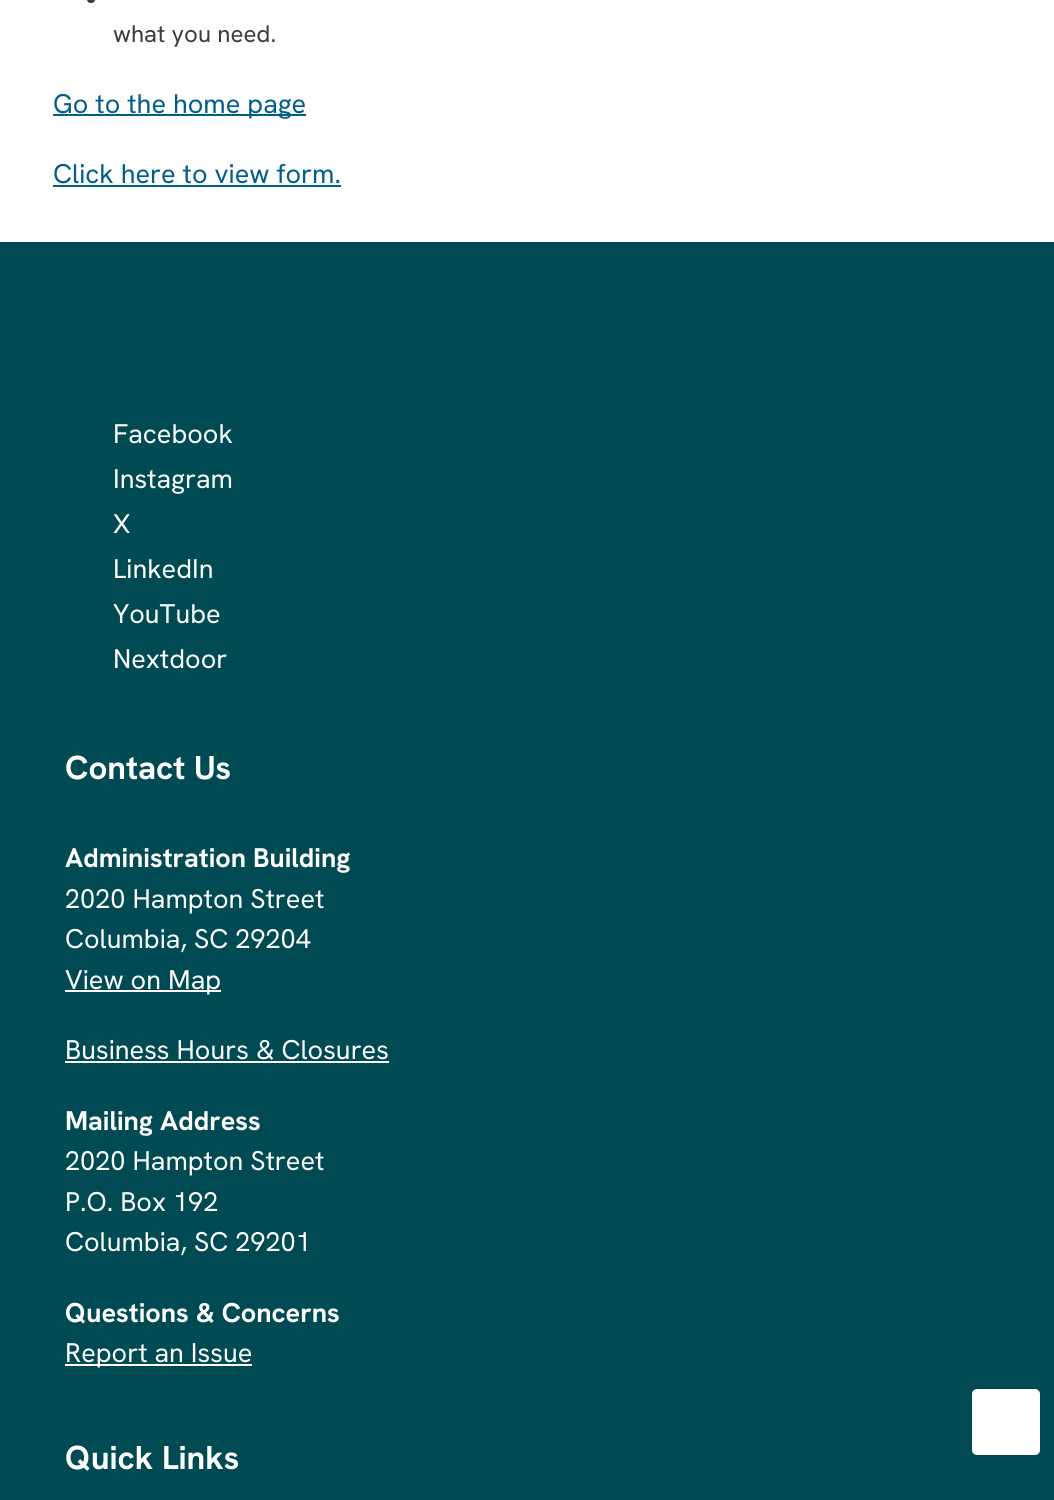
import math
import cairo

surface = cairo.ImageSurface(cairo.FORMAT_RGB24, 1054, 1500)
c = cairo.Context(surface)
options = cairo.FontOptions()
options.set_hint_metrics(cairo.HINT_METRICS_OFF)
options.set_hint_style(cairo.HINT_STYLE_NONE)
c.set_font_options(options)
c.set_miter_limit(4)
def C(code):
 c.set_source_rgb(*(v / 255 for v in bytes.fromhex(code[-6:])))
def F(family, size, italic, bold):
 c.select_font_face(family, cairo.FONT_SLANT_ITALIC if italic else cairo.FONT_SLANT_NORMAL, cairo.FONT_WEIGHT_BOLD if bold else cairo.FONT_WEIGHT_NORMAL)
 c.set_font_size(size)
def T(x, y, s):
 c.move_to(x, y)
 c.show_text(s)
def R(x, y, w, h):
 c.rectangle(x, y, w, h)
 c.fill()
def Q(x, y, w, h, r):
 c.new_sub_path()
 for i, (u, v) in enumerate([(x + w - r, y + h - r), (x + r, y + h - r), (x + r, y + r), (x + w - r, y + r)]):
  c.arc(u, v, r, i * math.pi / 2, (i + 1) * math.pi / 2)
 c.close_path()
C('ffffff')
c.paint()
C('373d3f')
Q(87,-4,8,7,3.5)
c.fill()
F('Hanken Grotesk',24,0,0)
T(113,42,'what you need.')
C('005f88')
R(53,114,253,2)
F('Hanken Grotesk',27,0,0)
T(53,113,'Go to the home page')
T(53,183,'Click here to view form.')
R(53,185,288,2)
C('004a54')
R(0,242,1054,1258)
C('ffffff')
Q(972,1389,68,66,5)
c.fill()
T(113,443,'Facebook')
T(113,488,'Instagram')
T(113,533,'X')
T(113,578,'LinkedIn')
T(113,623,'YouTube')
T(113,668,'Nextdoor')
F('Hanken Grotesk',33,0,1)
T(65,779,'Contact Us')
F('Hanken Grotesk',27,0,1)
T(65,867,'Administration Building')
F('Hanken Grotesk',27,0,0)
T(65,908,'2020 Hampton Street')
T(65,948,'Columbia, SC 29204')
R(65,990,156,2)
T(65,989,'View on Map')
T(65,1059,'Business Hours & Closures')
R(65,1061,324,2)
F('Hanken Grotesk',27,0,1)
T(65,1130,'Mailing Address')
F('Hanken Grotesk',27,0,0)
T(65,1170,'2020 Hampton Street')
T(65,1211,'P.O. Box 192')
T(65,1251,'Columbia, SC 29201')
F('Hanken Grotesk',27,0,1)
T(65,1322,'Questions & Concerns')
R(65,1364,187,2)
F('Hanken Grotesk',27,0,0)
T(65,1362,'Report an Issue')
F('Hanken Grotesk',33,0,1)
T(65,1469,'Quick Links')
surface.write_to_png('o.png')
